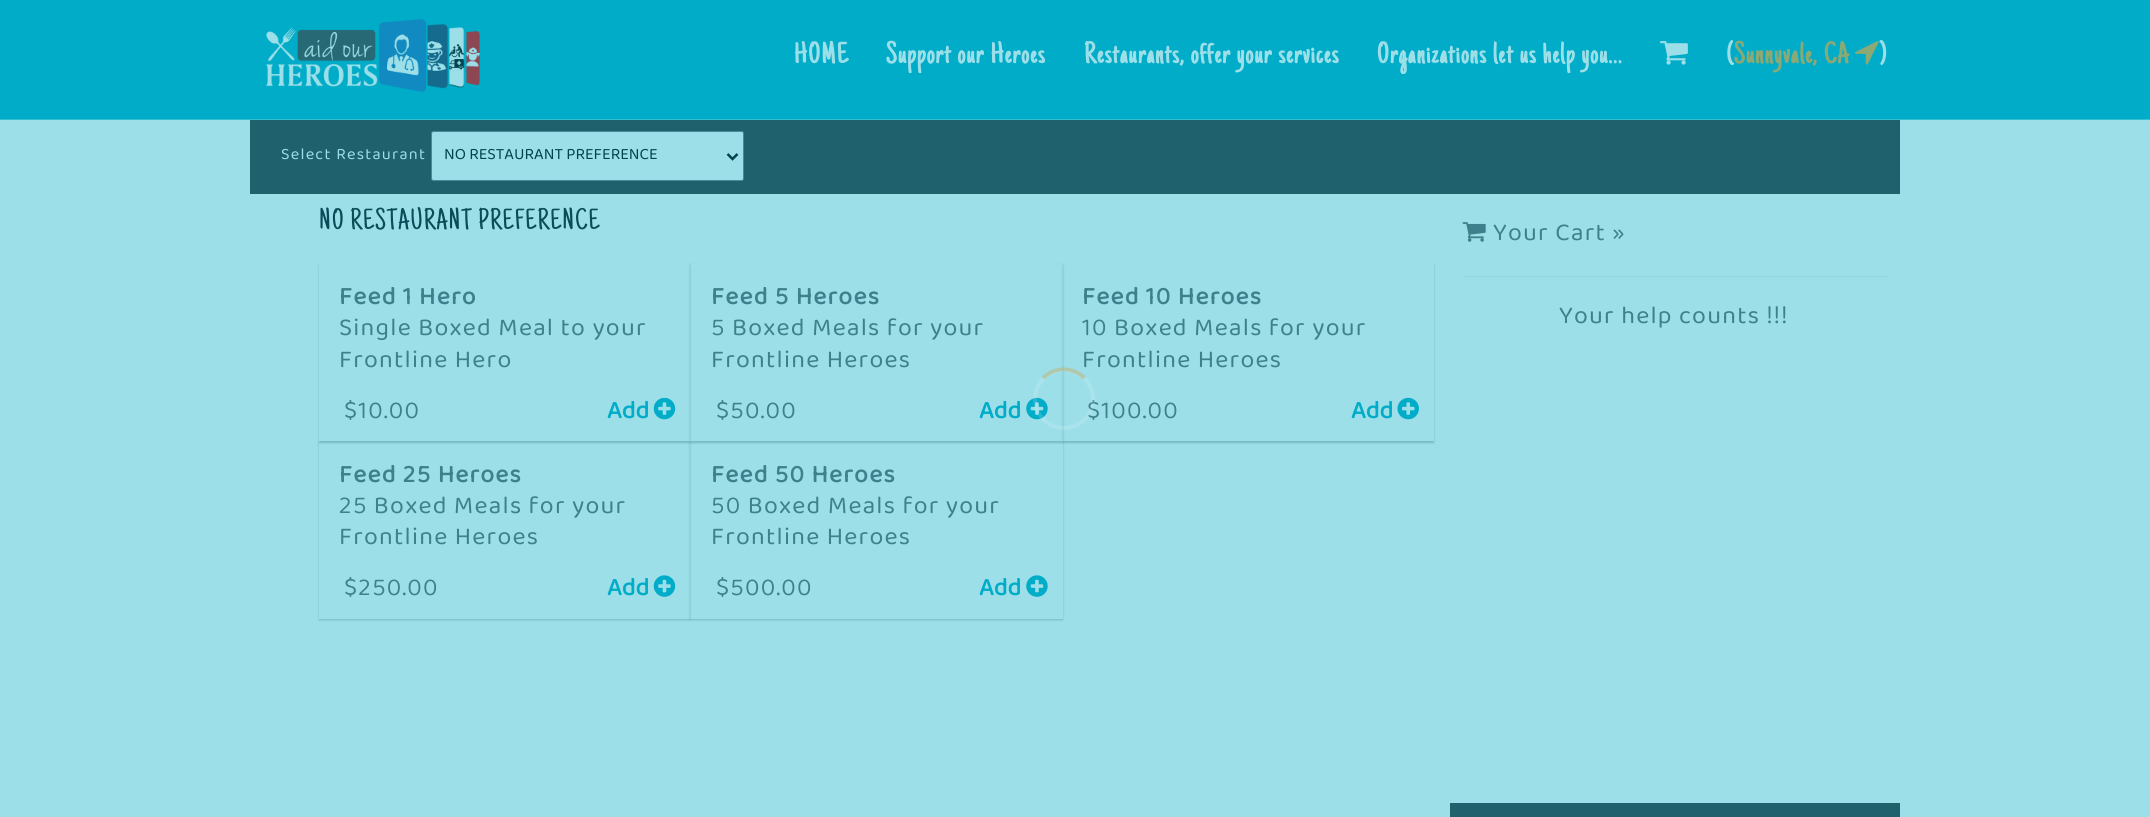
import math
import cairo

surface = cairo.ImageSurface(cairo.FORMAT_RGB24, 2150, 817)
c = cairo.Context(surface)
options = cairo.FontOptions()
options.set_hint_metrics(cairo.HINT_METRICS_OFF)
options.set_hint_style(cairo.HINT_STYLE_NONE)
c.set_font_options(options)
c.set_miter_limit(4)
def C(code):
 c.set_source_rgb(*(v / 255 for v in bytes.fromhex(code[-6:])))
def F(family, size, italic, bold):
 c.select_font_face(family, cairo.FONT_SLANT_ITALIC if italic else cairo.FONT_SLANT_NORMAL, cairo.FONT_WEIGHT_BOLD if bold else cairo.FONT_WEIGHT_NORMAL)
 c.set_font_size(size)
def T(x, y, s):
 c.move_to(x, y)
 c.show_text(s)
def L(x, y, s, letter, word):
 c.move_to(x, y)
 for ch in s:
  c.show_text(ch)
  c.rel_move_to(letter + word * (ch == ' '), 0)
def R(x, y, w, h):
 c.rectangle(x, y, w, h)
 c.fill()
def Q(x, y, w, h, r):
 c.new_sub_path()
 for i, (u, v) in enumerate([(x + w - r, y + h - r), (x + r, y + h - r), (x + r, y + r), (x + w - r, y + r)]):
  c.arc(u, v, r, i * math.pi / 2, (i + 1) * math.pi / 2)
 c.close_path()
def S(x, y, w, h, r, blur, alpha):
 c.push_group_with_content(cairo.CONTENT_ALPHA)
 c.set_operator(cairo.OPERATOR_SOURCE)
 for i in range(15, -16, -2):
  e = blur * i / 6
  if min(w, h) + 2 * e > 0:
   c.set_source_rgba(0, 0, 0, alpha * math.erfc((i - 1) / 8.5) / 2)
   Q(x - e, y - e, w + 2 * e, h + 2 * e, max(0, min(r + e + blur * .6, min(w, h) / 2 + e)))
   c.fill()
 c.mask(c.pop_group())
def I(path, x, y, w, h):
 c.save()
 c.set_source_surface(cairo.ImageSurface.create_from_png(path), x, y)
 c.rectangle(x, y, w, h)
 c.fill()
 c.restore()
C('9cdfe9')
c.paint()
C('00acc7')
R(0,0,2150,119)
C('36bed3')
R(0,119,2150,1)
I('1.png',266,19,214,73)
F('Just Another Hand',30,0,1)
C('9cdfe9')
L(794,63,'HOME',1.5,0)
L(886,63,'Support our Heroes',1.5,0)
L(1084,63,'Restaurants, offer your services',1.5,0)
L(1377,63,'Organizations let us help you...',1.5,0)
I('2.png',1660,41,28,24)
L(1727,63,'(',1.5,0)
C('8aa975')
L(1734,63,'Sunnyvale, CA',1.5,0)
I('3.png',1855,41,24,24)
C('9cdfe9')
L(1880,63,')',1.5,0)
C('1f626d')
R(250,120,1650,74)
F('Baloo Bhaina 2',16.25,0,0)
C('9cdfe9')
L(281,159,'Select Restaurant',1.25,0)
Q(431.5,131.5,312,49,2)
c.fill_preserve()
C('488b96')
c.set_line_width(1)
c.stroke()
c.new_path()
c.move_to(727.5,154)
c.line_to(732.5,159)
c.line_to(737.5,154)
C('00434e')
c.set_line_width(2.5)
c.stroke()
T(444,159,'NO RESTAURANT PREFERENCE')
F('Just Another Hand',30,0,0)
C('0a4d58')
L(319,229,'NO RESTAURANT PREFERENCE',1.25,0)
c.save()
c.set_fill_rule(cairo.FILL_RULE_EVEN_ODD)
c.new_path()
c.move_to(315,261)
c.line_to(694,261)
c.line_to(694,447)
c.line_to(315,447)
c.close_path()
c.move_to(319,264)
c.line_to(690,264)
c.line_to(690,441)
c.line_to(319,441)
c.close_path()
c.clip()
C('00434e')
S(319,265,371,178,0,1,.24)
c.restore()
F('Baloo Bhaina 2',25,0,1)
C('3e818c')
L(339,304,'Feed 1 Hero',1.25,0)
F('Baloo Bhaina 2',25,0,0)
L(339,335,'Single Boxed Meal to your',1.25,0)
L(339,367,'Frontline Hero',1.25,0)
L(344,418,'$10.00',1.25,0)
F('Baloo Bhaina 2',25,0,1)
C('00acc7')
T(607,418,'Add')
I('4.png',653,397,23,23)
c.save()
c.set_fill_rule(cairo.FILL_RULE_EVEN_ODD)
c.new_path()
c.move_to(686,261)
c.line_to(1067,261)
c.line_to(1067,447)
c.line_to(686,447)
c.close_path()
c.move_to(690,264)
c.line_to(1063,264)
c.line_to(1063,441)
c.line_to(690,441)
c.close_path()
c.clip()
C('00434e')
S(690,265,373,178,0,1,.24)
c.restore()
C('3e818c')
L(711,304,'Feed 5 Heroes',1.25,0)
F('Baloo Bhaina 2',25,0,0)
L(711,335,'5 Boxed Meals for your',1.25,0)
L(711,367,'Frontline Heroes',1.25,0)
L(716,418,'$50.00',1.25,0)
F('Baloo Bhaina 2',25,0,1)
C('00acc7')
T(979,418,'Add')
I('5.png',1026,397,22,23)
c.save()
c.set_fill_rule(cairo.FILL_RULE_EVEN_ODD)
c.new_path()
c.move_to(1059,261)
c.line_to(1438,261)
c.line_to(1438,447)
c.line_to(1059,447)
c.close_path()
c.move_to(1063,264)
c.line_to(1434,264)
c.line_to(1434,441)
c.line_to(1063,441)
c.close_path()
c.clip()
C('00434e')
S(1063,265,371,178,0,1,.24)
c.restore()
C('3e818c')
L(1082,304,'Feed 10 Heroes',1.25,0)
F('Baloo Bhaina 2',25,0,0)
L(1082,335,'10 Boxed Meals for your',1.25,0)
L(1082,367,'Frontline Heroes',1.25,0)
L(1087,418,'$100.00',1.25,0)
F('Baloo Bhaina 2',25,0,1)
C('00acc7')
T(1351,418,'Add')
I('6.png',1397,397,22,23)
c.save()
c.set_fill_rule(cairo.FILL_RULE_EVEN_ODD)
c.new_path()
c.move_to(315,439)
c.line_to(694,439)
c.line_to(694,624)
c.line_to(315,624)
c.close_path()
c.move_to(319,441)
c.line_to(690,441)
c.line_to(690,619)
c.line_to(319,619)
c.close_path()
c.clip()
C('00434e')
S(319,443,371,177,0,1,.24)
c.restore()
C('3e818c')
L(339,482,'Feed 25 Heroes',1.25,0)
F('Baloo Bhaina 2',25,0,0)
L(339,513,'25 Boxed Meals for your',1.25,0)
L(339,544,'Frontline Heroes',1.25,0)
L(344,595,'$250.00',1.25,0)
F('Baloo Bhaina 2',25,0,1)
C('00acc7')
T(607,595,'Add')
I('7.png',653,575,23,22)
c.save()
c.set_fill_rule(cairo.FILL_RULE_EVEN_ODD)
c.new_path()
c.move_to(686,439)
c.line_to(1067,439)
c.line_to(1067,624)
c.line_to(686,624)
c.close_path()
c.move_to(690,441)
c.line_to(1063,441)
c.line_to(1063,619)
c.line_to(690,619)
c.close_path()
c.clip()
C('00434e')
S(690,443,373,177,0,1,.24)
c.restore()
C('3e818c')
L(711,482,'Feed 50 Heroes',1.25,0)
F('Baloo Bhaina 2',25,0,0)
L(711,513,'50 Boxed Meals for your',1.25,0)
L(711,544,'Frontline Heroes',1.25,0)
L(716,595,'$500.00',1.25,0)
F('Baloo Bhaina 2',25,0,1)
C('00acc7')
T(979,595,'Add')
I('8.png',1026,575,22,22)
I('9.png',1462,222,24,20)
F('Baloo Bhaina 2',25,0,0)
C('3e818c')
L(1493,240,'Your Cart »',1.25,0)
C('91d4df')
R(1463,276,425,1)
C('3e818c')
L(1559,323,'Your help counts !!!',1.25,0)
C('1f626d')
R(1450,803,450,14)
c.new_path()
c.arc(1064,399,29,0,2 * math.pi)
c.set_source_rgba(1,1,1,0.14)
c.set_line_width(4)
c.stroke()
c.new_path()
c.move_to(1043,378)
c.curve_to(1054.5,366.5,1073,366.5,1084.5,378)
c.set_source_rgba(0.737,0.616,0.294,0.39)
c.set_line_width(3.8)
c.stroke()
surface.write_to_png('o.png')
